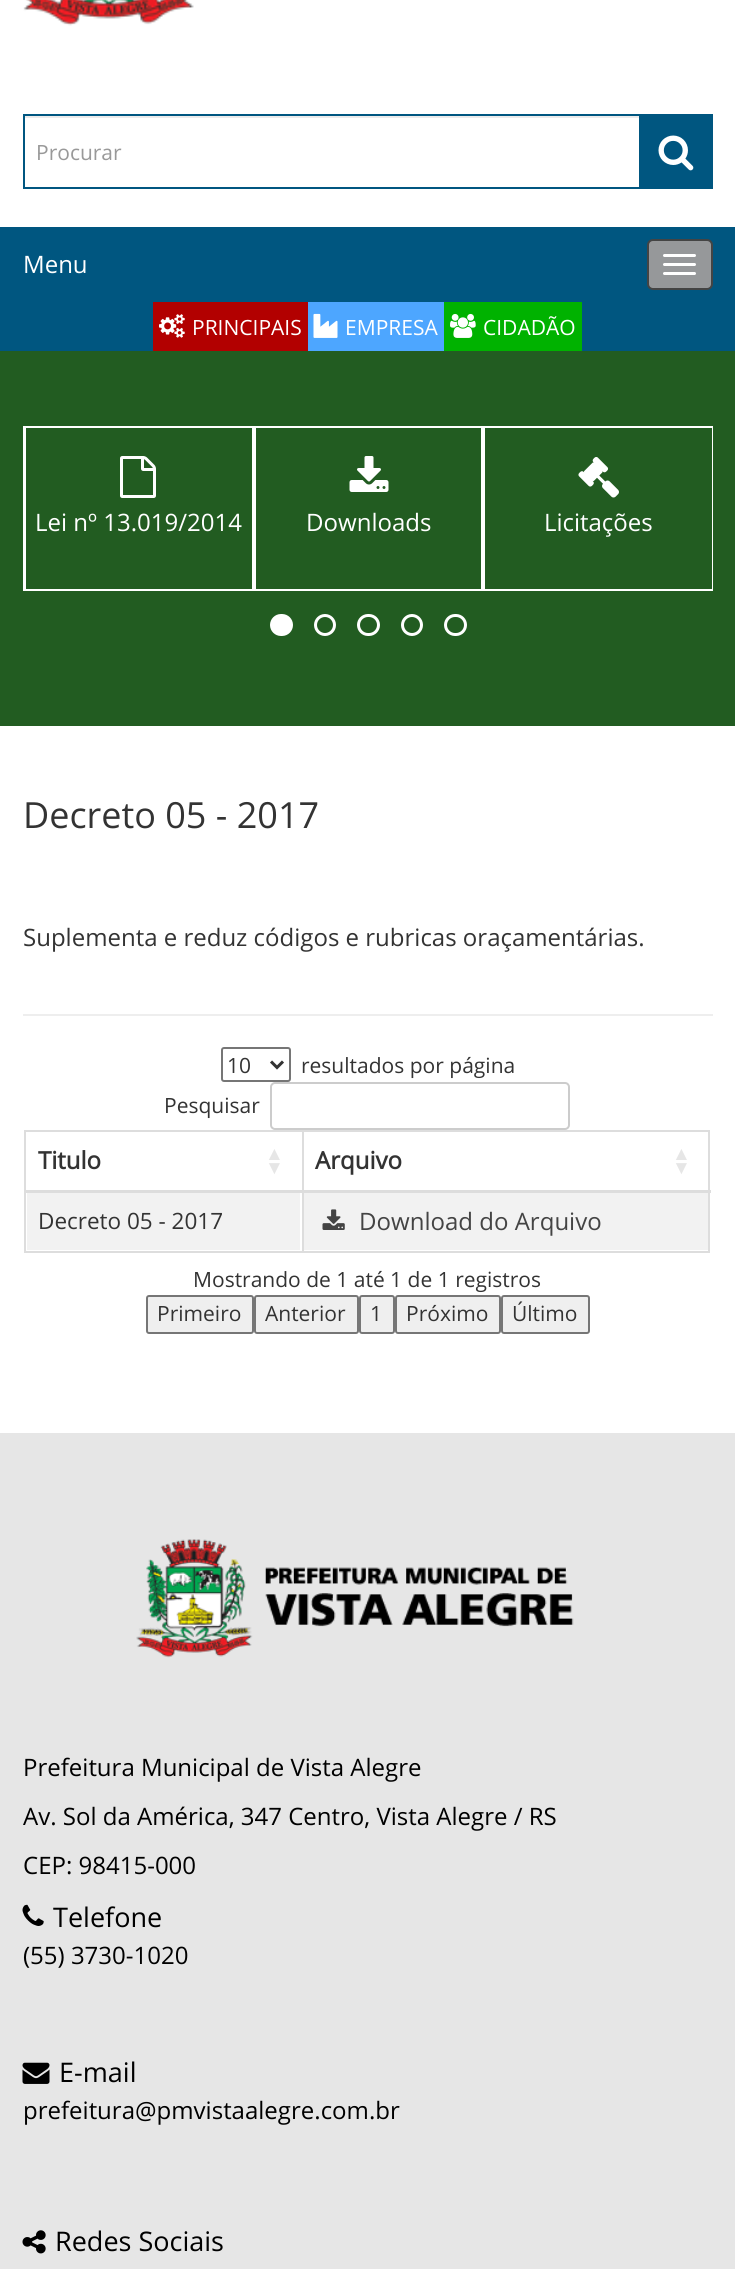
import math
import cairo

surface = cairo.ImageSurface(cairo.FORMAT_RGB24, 735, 2269)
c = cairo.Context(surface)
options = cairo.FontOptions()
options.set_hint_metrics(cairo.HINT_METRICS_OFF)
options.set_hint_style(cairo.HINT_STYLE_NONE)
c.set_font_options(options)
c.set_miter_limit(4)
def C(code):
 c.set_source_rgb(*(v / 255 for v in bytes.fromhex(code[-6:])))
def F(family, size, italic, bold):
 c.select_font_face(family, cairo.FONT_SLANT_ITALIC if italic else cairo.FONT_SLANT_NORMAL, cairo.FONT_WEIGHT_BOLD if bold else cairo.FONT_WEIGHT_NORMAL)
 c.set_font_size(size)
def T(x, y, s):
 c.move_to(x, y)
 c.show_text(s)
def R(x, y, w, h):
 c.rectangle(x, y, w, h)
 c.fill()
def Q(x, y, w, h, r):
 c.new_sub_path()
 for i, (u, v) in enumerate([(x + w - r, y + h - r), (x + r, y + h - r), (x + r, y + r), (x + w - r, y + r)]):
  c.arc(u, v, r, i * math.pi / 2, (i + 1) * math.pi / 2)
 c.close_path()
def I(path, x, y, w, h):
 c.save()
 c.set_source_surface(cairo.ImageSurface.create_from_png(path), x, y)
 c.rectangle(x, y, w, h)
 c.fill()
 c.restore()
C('ffffff')
c.paint()
I('1.png',23,0,171,26)
C('ececec')
R(24,116,615,2)
c.rectangle(24,115,616,73)
C('005680')
c.stroke()
F('Open Sans',21,0,0)
C('999999')
T(36,160,'Procurar')
C('005680')
c.rectangle(640,115,72,73)
c.fill_preserve()
c.stroke()
I('2.png',658,135,36,36)
R(0,227,735,124)
F('Open Sans',24,0,0)
C('ffffff')
T(23,273,'Menu')
C('96989a')
Q(648,240,64,49,5)
c.fill_preserve()
C('444444')
c.stroke()
C('ffffff')
Q(663,254,33,3,1.5)
c.fill()
Q(663,263,33,3,1.5)
c.fill()
Q(663,272,33,3,1.5)
c.fill()
C('b20000')
R(153,302,155,49)
I('3.png',159,314,26,24)
F('Open Sans',21,0,0)
C('ffffff')
T(192,335,'PRINCIPAIS')
C('4da6ff')
R(308,302,136,49)
I('4.png',313,313,25,25)
C('ffffff')
T(345,335,'EMPRESA')
C('00b200')
R(444,302,138,49)
I('5.png',450,313,26,25)
C('ffffff')
T(483,335,'CIDADÃO')
C('225c21')
R(0,351,735,375)
c.save()
c.rectangle(23,426,690,165)
c.clip()
c.rectangle(-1,427,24,163)
C('ffffff')
c.stroke()
c.restore()
c.rectangle(25,427,228,163)
C('ffffff')
c.stroke()
I('6.png',120,456,36,42)
F('Open Sans',24,0,0)
T(35,531,'Lei nº 13.019/2014')
c.rectangle(255,427,227,163)
c.stroke()
I('7.png',349,456,40,36)
T(306,531,'Downloads')
c.save()
c.rectangle(23,426,690,165)
c.clip()
c.rectangle(484,427,229,163)
c.stroke()
c.restore()
I('8.png',578,457,41,41)
T(544,531,'Licitações')
Q(271.5,615.5,20,19,9.5)
c.fill_preserve()
c.set_line_width(3)
c.stroke()
c.arc(325,625,9.5,0,2 * math.pi)
c.stroke()
Q(358.5,615.5,20,19,9.5)
c.stroke()
c.arc(412,625,9.5,0,2 * math.pi)
c.stroke()
Q(445.5,615.5,20,19,9.5)
c.stroke()
F('Open Sans',36,0,0)
C('333333')
T(23,828,'Decreto 05 - 2017')
F('Open Sans',24,0,0)
T(23,946,'Suplementa e reduz códigos e rubricas oraçamentárias.')
C('eeeeee')
R(23,1014,690,2)
Q(222,1048,68,33,2)
C('767676')
c.set_line_width(2)
c.stroke()
c.new_path()
c.move_to(271,1061.5)
c.line_to(277,1067.5)
c.line_to(283,1061.5)
C('333333')
c.set_line_width(3)
c.stroke()
F('Open Sans',21,0,0)
T(227,1073,'10')
T(301,1073,'resultados por página')
T(164,1113,'Pesquisar')
Q(271,1083,298,46,4)
C('cccccc')
c.set_line_width(2)
c.stroke()
C('dddddd')
R(24,1130,686,2)
R(708,1130,2,123)
R(24,1251,686,2)
R(24,1130,2,123)
F('Open Sans',24,0,1)
C('333333')
T(38,1169,'Titulo')
F('Liberation Sans',19,0,1)
C('e6e6e6')
T(265,1160,'▲')
T(265,1174,'▼')
C('dddddd')
R(302,1130,2,123)
R(24,1190,687,3)
F('Open Sans',24,0,1)
C('333333')
T(315,1169,'Arquivo')
F('Liberation Sans',19,0,1)
C('e6e6e6')
T(672,1160,'▲')
T(672,1174,'▼')
C('f2f2f2')
R(27,1193,273,57)
F('Open Sans',22.5,0,0)
C('333333')
T(38,1229,'Decreto 05 - 2017')
C('f2f2f2')
R(304,1193,404,57)
I('9.png',322,1209,23,21)
F('Open Sans',24,0,0)
C('444444')
T(359,1230,'Download do Arquivo')
F('Open Sans',21,0,0)
C('333333')
T(193,1287,'Mostrando de 1 até 1 de 1 registros')
C('efefef')
Q(147,1296,106,37,2)
c.fill_preserve()
C('767676')
c.stroke()
C('333333')
T(157,1321,'Primeiro')
C('efefef')
Q(255,1296,103,37,2)
c.fill_preserve()
C('767676')
c.stroke()
C('333333')
T(265,1321,'Anterior')
C('efefef')
Q(360,1296,34,37,2)
c.fill_preserve()
C('767676')
c.stroke()
C('333333')
T(370,1321,'1')
C('efefef')
Q(396,1296,104,37,2)
c.fill_preserve()
C('767676')
c.stroke()
C('333333')
T(406,1321,'Próximo')
C('efefef')
Q(502,1296,87,37,2)
c.fill_preserve()
C('767676')
c.stroke()
C('333333')
T(512,1321,'Último')
C('e6e6e6')
R(0,1433,735,836)
I('10.png',136,1539,438,119)
F('Open Sans',24,0,0)
C('000000')
T(23,1776,'Prefeitura Municipal de Vista Alegre')
T(23,1825,'Av. Sol da América, 347 Centro, Vista Alegre / RS')
T(23,1874,'CEP: 98415-000')
I('11.png',22,1904,22,22)
F('Open Sans',27,0,0)
T(53,1927,'Telefone')
F('Open Sans',24,0,0)
T(23,1964,'(55) 3730-1020')
I('12.png',22,2062,28,22)
F('Open Sans',27,0,0)
T(59,2082,'E-mail')
F('Open Sans',24,0,0)
T(23,2119,'prefeitura@pmvistaalegre.com.br')
I('13.png',22,2230,24,24)
F('Open Sans',27,0,0)
T(55,2251,'Redes Sociais')
surface.write_to_png('o.png')
